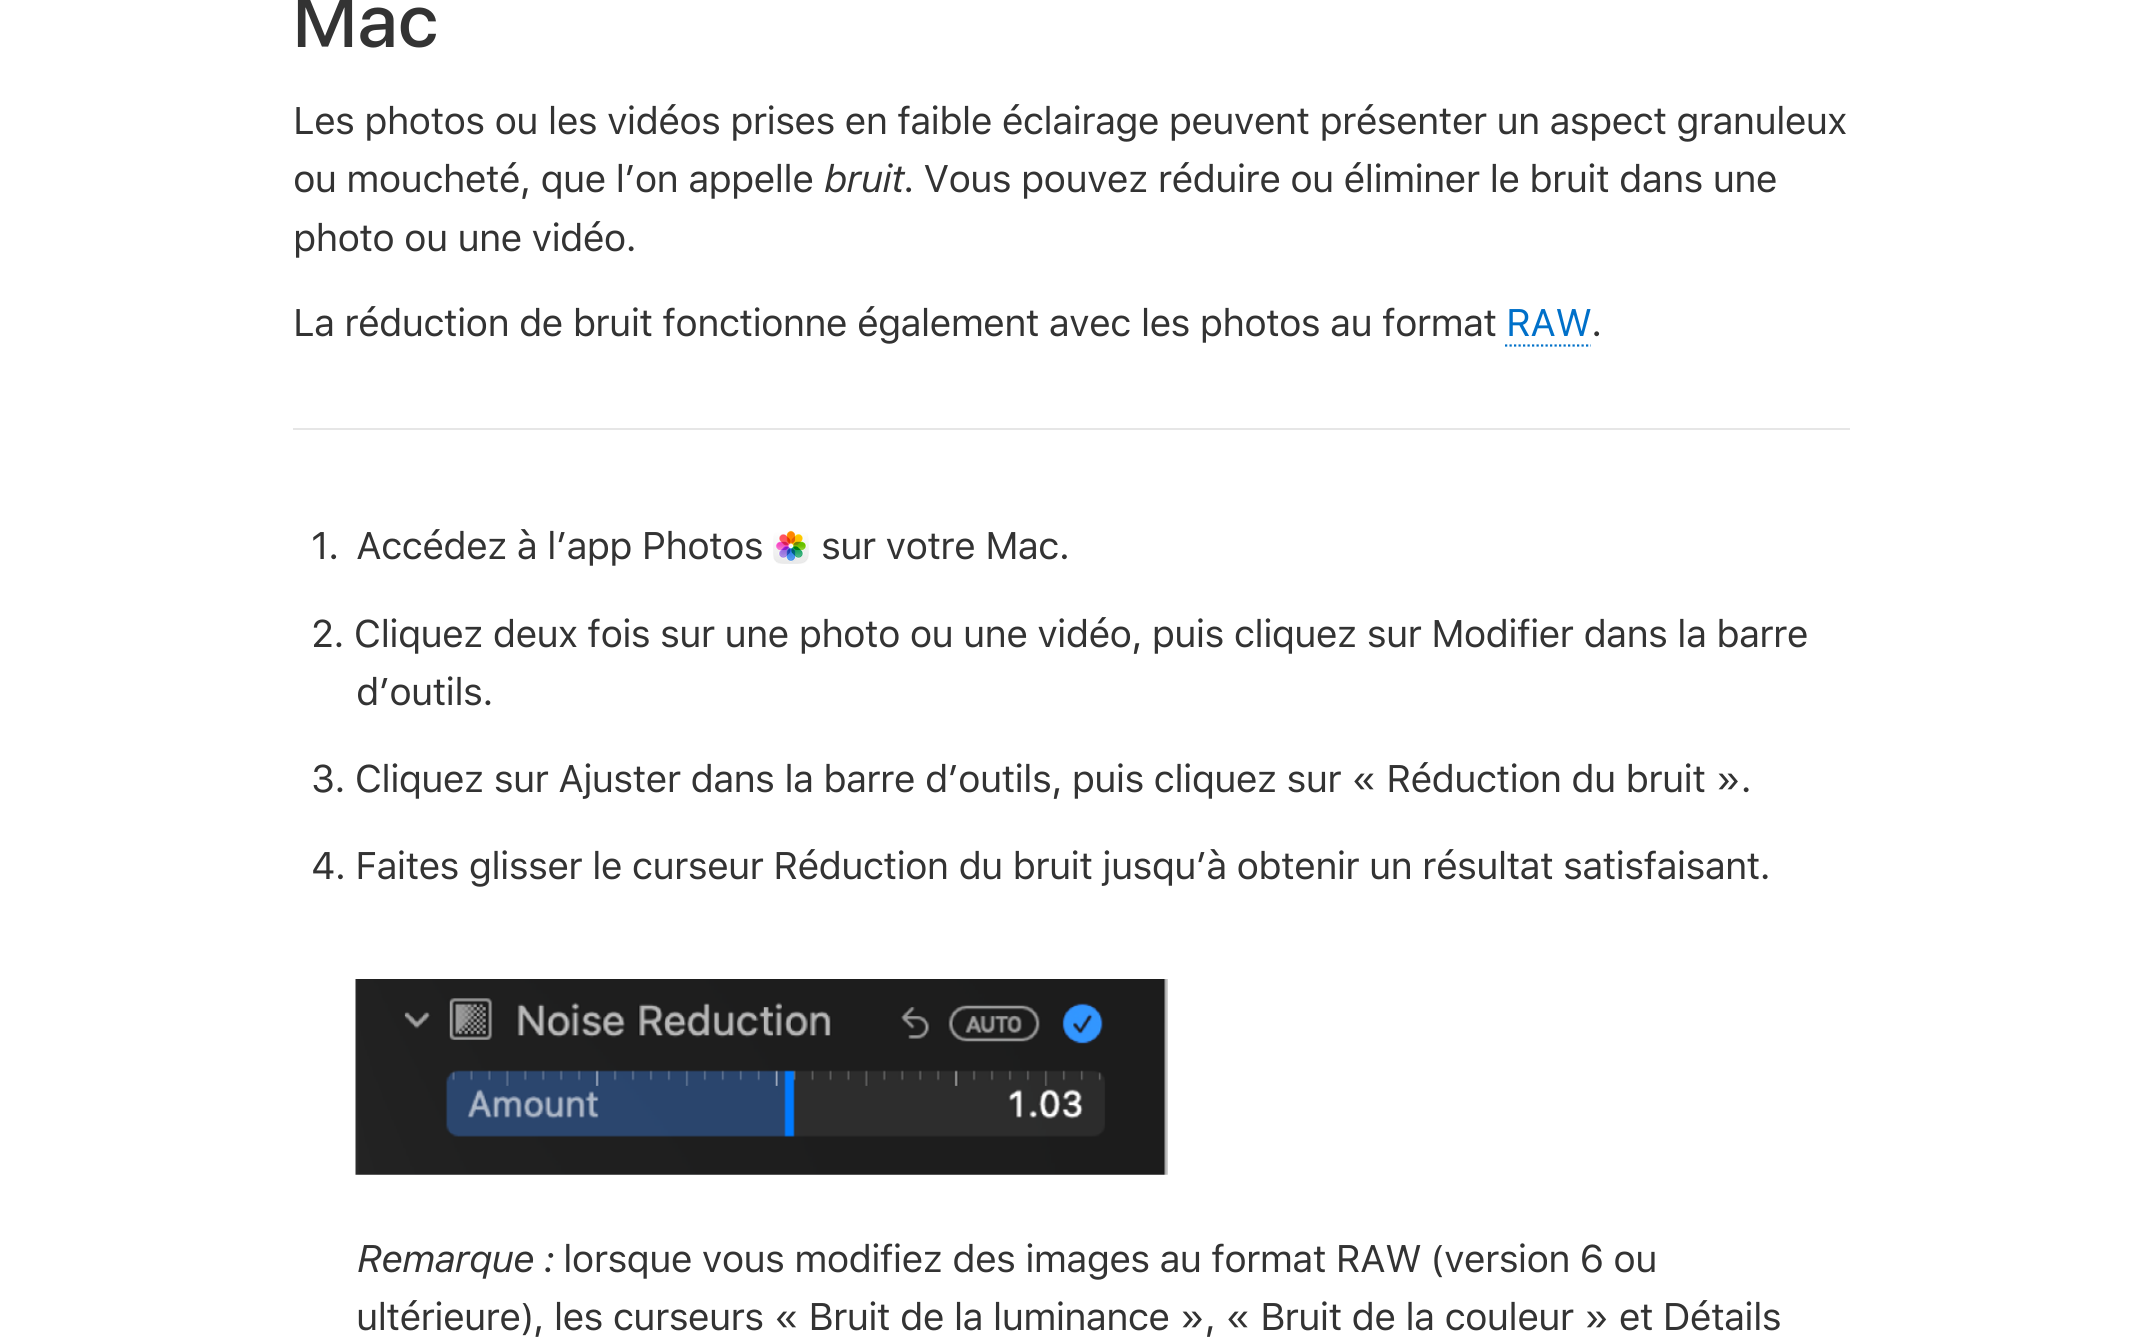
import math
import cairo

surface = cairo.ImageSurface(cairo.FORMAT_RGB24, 2142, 1340)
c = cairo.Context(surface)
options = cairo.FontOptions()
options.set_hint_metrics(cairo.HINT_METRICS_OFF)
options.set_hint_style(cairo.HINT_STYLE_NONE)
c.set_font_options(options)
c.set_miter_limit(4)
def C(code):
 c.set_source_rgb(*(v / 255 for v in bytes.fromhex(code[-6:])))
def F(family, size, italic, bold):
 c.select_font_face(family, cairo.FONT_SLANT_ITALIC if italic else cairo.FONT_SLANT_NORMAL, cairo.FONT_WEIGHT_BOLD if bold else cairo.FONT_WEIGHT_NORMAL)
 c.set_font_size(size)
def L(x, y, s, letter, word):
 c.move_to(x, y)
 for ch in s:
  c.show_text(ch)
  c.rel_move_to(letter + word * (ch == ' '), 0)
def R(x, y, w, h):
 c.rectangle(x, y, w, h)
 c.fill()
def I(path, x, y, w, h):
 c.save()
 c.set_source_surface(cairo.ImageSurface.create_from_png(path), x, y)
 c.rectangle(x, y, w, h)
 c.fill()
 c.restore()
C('ffffff')
c.paint()
F('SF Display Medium',76,0,0)
C('333333')
L(293,47,'Mac',1,0)
F('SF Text',38.25,0,0)
L(293,134,'Les photos ou les vidéos prises en faible éclairage peuvent présenter un aspect granuleux',-.8,0)
L(293,192,'ou moucheté, que l’on appelle',-.8,0)
F('SF Text',38.25,1,0)
L(823,192,'bruit',-.8,0)
F('SF Text',38.25,0,0)
L(903,192,'. Vous pouvez réduire ou éliminer le bruit dans une',-.8,0)
L(293,251,'photo ou une vidéo.',-.8,0)
L(293,336,'La réduction de bruit fonctionne également avec les photos au format',-.8,0)
C('0070c9')
L(1506,336,'RAW',-.8,0)
c.new_path()
c.move_to(1505,345.5)
c.line_to(1591,345.5)
c.set_line_width(2.2)
c.set_dash([2.25,2.25])
c.stroke()
C('333333')
L(1591,336,'.',-.8,0)
C('e6e6e6')
R(293,428,1557,2)
C('333333')
L(311,559,'1.',-.8,0)
L(356,559,'Accédez à l’app Photos',-.8,0)
I('1.png',773,530,36,34)
L(821,559,'sur votre Mac.',-.8,0)
L(311,647,'2. Cliquez deux fois sur une photo ou une vidéo, puis cliquez sur Modifier dans la barre',-.8,0)
L(356,705,'d’outils.',-.8,0)
L(311,792,'3. Cliquez sur Ajuster dans la barre d’outils, puis cliquez sur « Réduction du bruit ».',-.8,0)
L(311,879,'4. Faites glisser le curseur Réduction du bruit jusqu’à obtenir un résultat satisfaisant.',-.8,0)
I('2.png',355,979,813,196)
F('SF Text',38.25,1,0)
L(356,1272,'Remarque :',-.8,0)
F('SF Text',38.25,0,0)
L(563,1272,'lorsque vous modifiez des images au format RAW (version 6 ou',-.8,0)
L(356,1330,'ultérieure), les curseurs « Bruit de la luminance », « Bruit de la couleur » et Détails',-.8,0)
surface.write_to_png('o.png')
